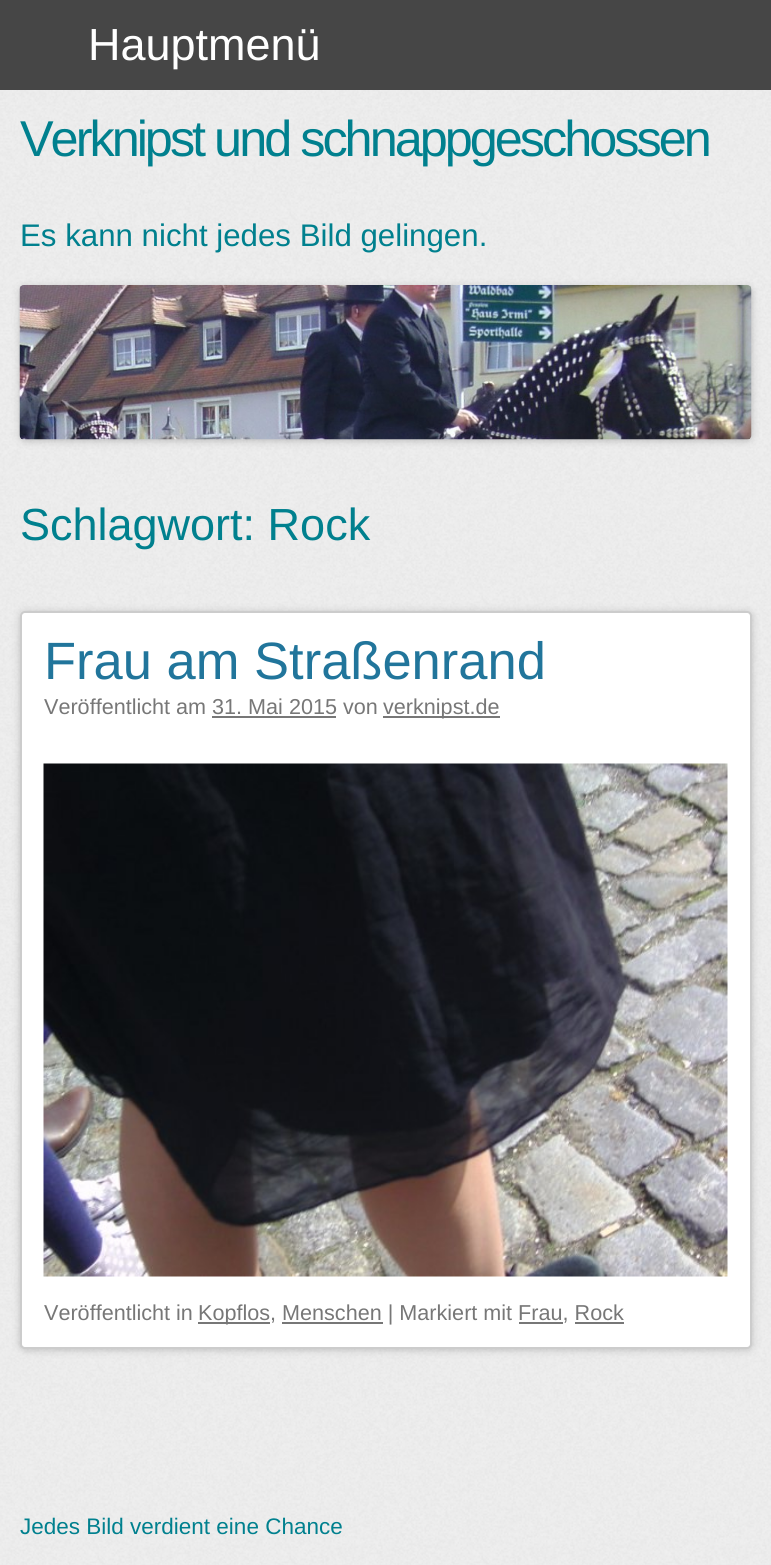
import math
import cairo

surface = cairo.ImageSurface(cairo.FORMAT_RGB24, 771, 1565)
c = cairo.Context(surface)
options = cairo.FontOptions()
options.set_hint_metrics(cairo.HINT_METRICS_OFF)
options.set_hint_style(cairo.HINT_STYLE_NONE)
c.set_font_options(options)
c.set_miter_limit(4)
def C(code):
 c.set_source_rgb(*(v / 255 for v in bytes.fromhex(code[-6:])))
def F(family, size, italic, bold):
 c.select_font_face(family, cairo.FONT_SLANT_ITALIC if italic else cairo.FONT_SLANT_NORMAL, cairo.FONT_WEIGHT_BOLD if bold else cairo.FONT_WEIGHT_NORMAL)
 c.set_font_size(size)
def T(x, y, s):
 c.move_to(x, y)
 c.show_text(s)
def L(x, y, s, letter, word):
 c.move_to(x, y)
 for ch in s:
  c.show_text(ch)
  c.rel_move_to(letter + word * (ch == ' '), 0)
def R(x, y, w, h):
 c.rectangle(x, y, w, h)
 c.fill()
def Q(x, y, w, h, r):
 c.new_sub_path()
 for i, (u, v) in enumerate([(x + w - r, y + h - r), (x + r, y + h - r), (x + r, y + r), (x + w - r, y + r)]):
  c.arc(u, v, r, i * math.pi / 2, (i + 1) * math.pi / 2)
 c.close_path()
def S(x, y, w, h, r, blur, alpha):
 c.push_group_with_content(cairo.CONTENT_ALPHA)
 c.set_operator(cairo.OPERATOR_SOURCE)
 for i in range(15, -16, -2):
  e = blur * i / 6
  if min(w, h) + 2 * e > 0:
   c.set_source_rgba(0, 0, 0, alpha * math.erfc((i - 1) / 8.5) / 2)
   Q(x - e, y - e, w + 2 * e, h + 2 * e, max(0, min(r + e + blur * .6, min(w, h) / 2 + e)))
   c.fill()
 c.mask(c.pop_group())
def I(path, x, y, w, h):
 c.save()
 c.set_source_surface(cairo.ImageSurface.create_from_png(path), x, y)
 c.rectangle(x, y, w, h)
 c.fill()
 c.restore()
C('f0f0f0')
c.paint()
I('1.png',0,90,771,1475)
C('464646')
R(0,0,771,90)
F('Liberation Sans',45,0,0)
C('ffffff')
T(88,60,'Hauptmenü')
F('Liberation Sans',50.4,0,0)
C('00808e')
L(20,156,'Verknipst und schnappgeschossen',-3,0)
F('Liberation Sans',31.25,0,0)
T(20,246,'Es kann nicht jedes Bild gelingen.')
C('000000')
S(20,287,732,154,5,4,.2)
I('2.png',19,285,733,155)
F('Liberation Sans',45,0,0)
C('00808e')
T(20,540,'Schlagwort: Rock')
C('000000')
S(20,612,732,738,5,4,.2)
C('ffffff')
Q(21,612,730,736,4)
c.fill_preserve()
C('cccccc')
c.stroke()
F('Liberation Sans',52.5,0,0)
C('21759b')
T(44,679,'Frau am Straßenrand')
F('Liberation Sans',21.6,0,0)
C('777777')
T(44,714,'Veröffentlicht am 31. Mai 2015 von')
R(383,716,117,2)
T(383,714,'verknipst.de')
R(212,716,124,2)
I('3.png',43,763,685,514)
T(44,1320,'Veröffentlicht in')
R(198,1322,72,2)
T(198,1320,'Kopflos, Menschen | Markiert mit Frau, Rock')
R(282,1322,101,2)
R(519,1322,44,2)
R(575,1322,49,2)
F('Liberation Sans',22.5,0,0)
C('00808e')
T(20,1534,'Jedes Bild verdient eine Chance')
surface.write_to_png('o.png')
